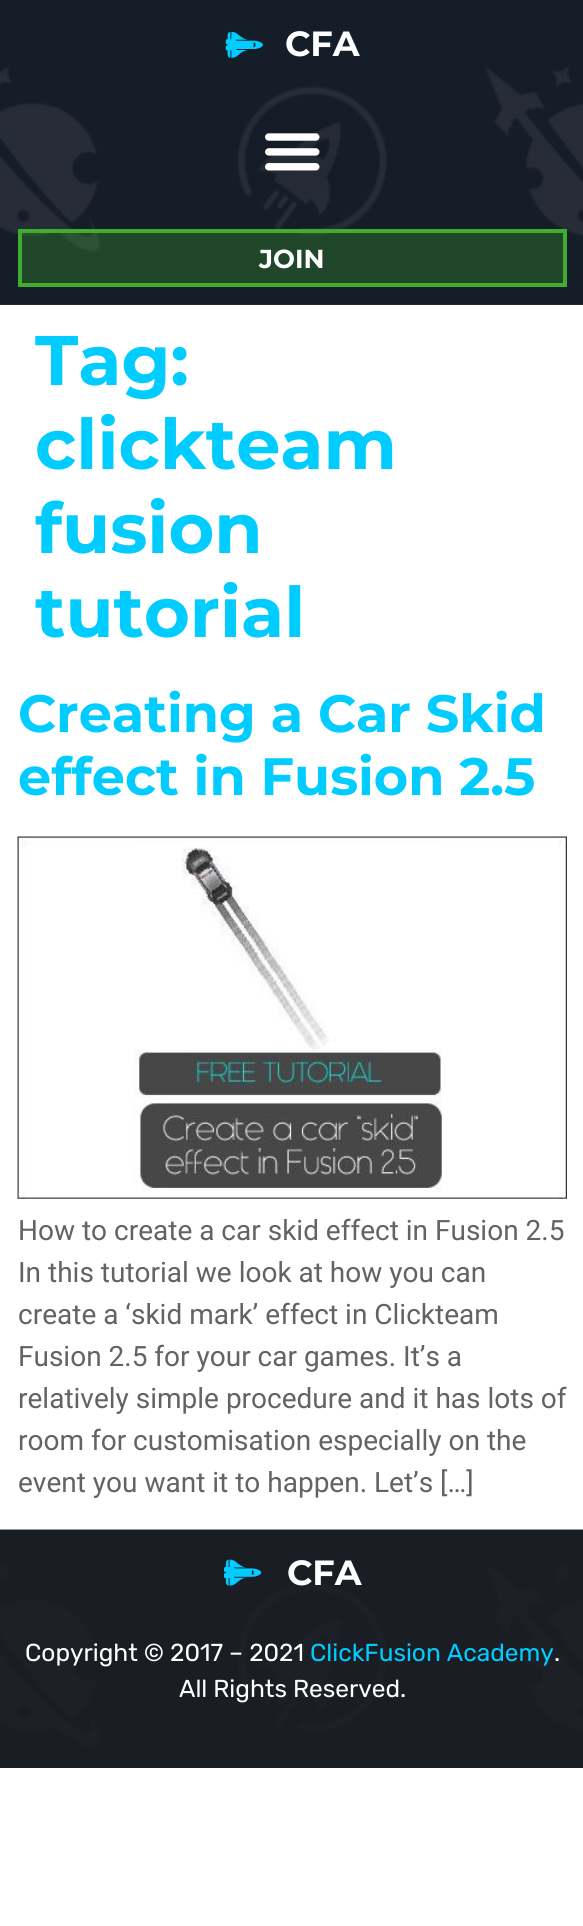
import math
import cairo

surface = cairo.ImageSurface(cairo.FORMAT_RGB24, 583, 1926)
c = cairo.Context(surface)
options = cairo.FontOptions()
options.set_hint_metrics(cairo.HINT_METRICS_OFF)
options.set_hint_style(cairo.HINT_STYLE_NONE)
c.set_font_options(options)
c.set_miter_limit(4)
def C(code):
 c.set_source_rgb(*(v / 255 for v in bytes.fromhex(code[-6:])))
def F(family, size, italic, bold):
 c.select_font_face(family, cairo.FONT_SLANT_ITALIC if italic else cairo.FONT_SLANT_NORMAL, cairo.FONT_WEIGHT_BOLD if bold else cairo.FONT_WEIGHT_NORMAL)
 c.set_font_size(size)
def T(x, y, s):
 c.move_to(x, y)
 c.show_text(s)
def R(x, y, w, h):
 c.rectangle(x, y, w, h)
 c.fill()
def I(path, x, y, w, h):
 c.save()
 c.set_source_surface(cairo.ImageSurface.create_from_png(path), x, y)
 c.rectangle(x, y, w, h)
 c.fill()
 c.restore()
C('ffffff')
c.paint()
C('2d3038')
R(0,304,583,1)
I('1.png',0,0,583,305)
I('2.png',225,31,38,27)
F('Montserrat',35,0,1)
C('ffffff')
T(285,56,'CFA')
c.set_source_rgba(0,0,0,0.05)
R(249,105,89,89)
I('3.png',265,133,55,38)
c.set_source_rgba(0.255,0.678,0.184,0.29)
c.rectangle(20,231,545,54)
c.fill_preserve()
C('41ad2f')
c.set_line_width(4)
c.stroke()
F('Montserrat',26,0,1)
C('ffffff')
T(259,268,'JOIN')
F('Montserrat',70,0,1)
C('00ccff')
T(35,385,'Tag:')
T(35,469,'clickteam')
T(35,553,'fusion')
T(35,637,'tutorial')
F('Montserrat',52.5,0,1)
T(18,732,'Creating a Car Skid')
T(18,795,'effect in Fusion 2.5')
I('4.png',17,836,550,363)
F('Roboto',28,0,0)
C('636363')
T(18,1240,'How to create a car skid effect in Fusion 2.5')
T(18,1282,'In this tutorial we look at how you can')
T(18,1324,'create a ‘skid mark’ effect in Clickteam')
T(18,1366,'Fusion 2.5 for your car games. It’s a')
T(18,1408,'relatively simple procedure and it has lots of')
T(18,1450,'room for customisation especially on the')
T(18,1492,'event you want it to happen. Let’s […]')
C('1a1e23')
R(0,1767,583,1)
I('5.png',0,1529,583,239)
I('6.png',224,1559,38,27)
F('Montserrat',35,0,1)
C('ffffff')
T(287,1585,'CFA')
F('Rubik',24.5,0,0)
T(25,1661,'Copyright © 2017 – 2021')
C('00ccff')
T(310,1661,'ClickFusion Academy')
C('ffffff')
T(554,1661,'.')
T(179,1697,'All Rights Reserved.')
surface.write_to_png('o.png')
